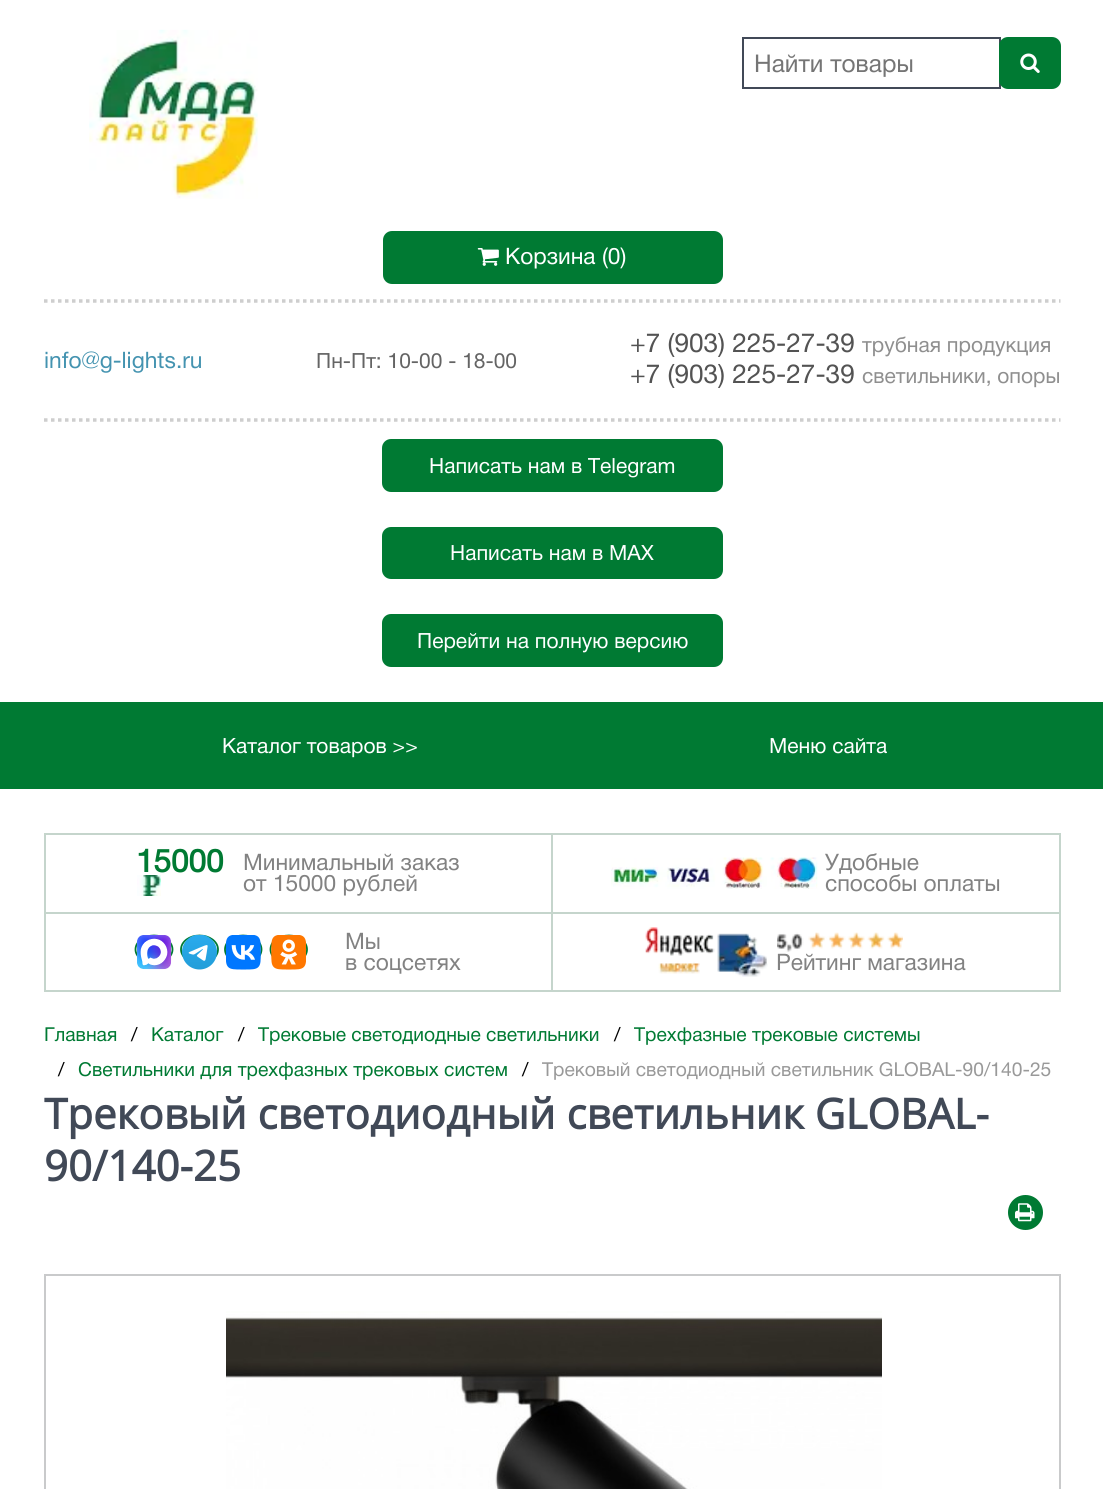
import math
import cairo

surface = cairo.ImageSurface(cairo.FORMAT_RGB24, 1103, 1489)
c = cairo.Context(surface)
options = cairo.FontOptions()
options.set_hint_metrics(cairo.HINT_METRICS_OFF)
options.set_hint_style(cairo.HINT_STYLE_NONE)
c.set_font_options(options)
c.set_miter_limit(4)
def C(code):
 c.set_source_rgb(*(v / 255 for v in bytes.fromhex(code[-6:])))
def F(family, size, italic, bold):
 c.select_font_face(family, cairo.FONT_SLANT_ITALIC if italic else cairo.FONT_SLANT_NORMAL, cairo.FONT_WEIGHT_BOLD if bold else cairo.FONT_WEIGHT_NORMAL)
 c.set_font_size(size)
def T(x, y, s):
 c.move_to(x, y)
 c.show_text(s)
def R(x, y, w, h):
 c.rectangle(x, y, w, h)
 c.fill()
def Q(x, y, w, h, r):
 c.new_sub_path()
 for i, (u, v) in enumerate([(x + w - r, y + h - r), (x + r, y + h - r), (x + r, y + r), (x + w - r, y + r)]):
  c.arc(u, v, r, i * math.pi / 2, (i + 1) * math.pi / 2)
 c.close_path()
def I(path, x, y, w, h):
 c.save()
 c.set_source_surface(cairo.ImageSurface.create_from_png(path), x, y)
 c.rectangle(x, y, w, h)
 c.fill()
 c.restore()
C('ffffff')
c.paint()
I('1.png',89,29,169,170)
c.rectangle(743,38,257,50)
C('414957')
c.stroke()
F('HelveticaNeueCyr',24.5,0,0)
C('757575')
T(754,72,'Найти товары')
C('007a33')
Q(999,37,62,52,9)
c.fill()
I('2.png',1020,53,20,20)
Q(383,231,340,53,9)
c.fill()
I('3.png',477,248,22,18)
F('HelveticaNeueCyr',22.75,0,0)
C('ffffff')
T(505,264,'Корзина (0)')
c.new_path()
c.move_to(44,301)
c.line_to(1060.5,301)
C('cecece')
c.set_line_width(3.5)
c.set_dash([3.5,3.5])
c.stroke()
c.new_path()
c.move_to(44,420)
c.line_to(1060.5,420)
c.stroke()
C('4493b0')
T(44,368,'info@g-lights.ru')
F('HelveticaNeueCyr',21,0,0)
C('646464')
T(316,368,'Пн-Пт: 10-00 - 18-00')
F('HelveticaNeueCyr',26.25,0,0)
C('535353')
T(630,352,'+7 (903) 225-27-39')
F('HelveticaNeueCyr',21,0,0)
C('8f8f8f')
T(862,352,'трубная продукция')
F('HelveticaNeueCyr',26.25,0,0)
C('535353')
T(630,383,'+7 (903) 225-27-39')
F('HelveticaNeueCyr',21,0,0)
C('8f8f8f')
T(862,383,'светильники, опоры')
C('007a33')
Q(382,439,341,53,9)
c.fill()
C('ffffff')
T(429,473,'Написать нам в Telegram')
C('007a33')
Q(382,527,341,52,9)
c.fill()
C('ffffff')
T(450,560,'Написать нам в MAX')
C('007a33')
Q(382,614,341,53,9)
c.fill()
C('ffffff')
T(417,648,'Перейти на полную версию')
C('007a33')
R(0,702,1103,87)
C('ffffff')
T(222,753,'Каталог товаров >>')
T(769,753,'Меню сайта')
c.rectangle(45,834,1015,157)
C('c5d5cc')
c.set_line_width(2)
c.set_dash([])
c.stroke()
R(551,835,2,156)
R(46,912,1013,2)
F('HelveticaNeueCyr',31.5,0,1)
C('007a33')
T(136,872,'15000')
I('4.png',137,875,24,21)
F('HelveticaNeueCyr',22.75,0,0)
C('828282')
T(243,870,'Минимальный заказ')
T(243,891,'от 15000 рублей')
I('5.png',611,857,207,32)
T(825,870,'Удобные')
T(825,891,'способы оплаты')
c.new_path()
c.move_to(154,935.5)
c.curve_to(164,935.5,172.5,941.5,172.5,949.5)
c.curve_to(172.5,957,164,963.5,154,963.5)
c.curve_to(144,963.5,135.5,957,135.5,949.5)
c.curve_to(135.5,941.5,144,935.5,154,935.5)
c.close_path()
C('007a33')
c.set_line_width(1.8)
c.stroke()
c.new_path()
c.move_to(199.5,935.5)
c.curve_to(209.5,935.5,218,941.5,218,949.5)
c.curve_to(218,957,209.5,963.5,199.5,963.5)
c.curve_to(189.5,963.5,181,957,181,949.5)
c.curve_to(181,941.5,189.5,935.5,199.5,935.5)
c.close_path()
c.stroke()
c.new_path()
c.move_to(243,935.5)
c.curve_to(253.5,935.5,261.5,941.5,261.5,949.5)
c.curve_to(261.5,957,253.5,963.5,243,963.5)
c.curve_to(233,963.5,225,957,225,949.5)
c.curve_to(225,941.5,233,935.5,243,935.5)
c.close_path()
c.stroke()
c.new_path()
c.move_to(289,935.5)
c.curve_to(299,935.5,307,941.5,307,949.5)
c.curve_to(307,957,299,963.5,289,963.5)
c.curve_to(278.5,963.5,270.5,957,270.5,949.5)
c.curve_to(270.5,941.5,278.5,935.5,289,935.5)
c.close_path()
c.stroke()
I('6.png',137,935,35,35)
I('7.png',182,935,35,35)
I('8.png',226,935,35,35)
I('9.png',271,935,35,35)
C('828282')
T(345,949,'Мы')
T(345,970,'в соцсетях')
I('10.png',645,927,123,50)
I('11.png',777,932,126,20)
T(776,970,'Рейтинг магазина')
F('HelveticaNeueCyr',19.25,0,0)
C('007a33')
T(44,1041,'Главная')
C('000000')
T(131,1041,'/')
C('007a33')
T(151,1041,'Каталог')
C('000000')
T(238,1041,'/')
C('007a33')
T(258,1041,'Трековые светодиодные светильники')
C('000000')
T(614,1041,'/')
C('007a33')
T(634,1041,'Трехфазные трековые системы')
C('000000')
T(58,1076,'/')
C('007a33')
T(78,1076,'Светильники для трехфазных трековых систем')
C('000000')
T(522,1076,'/')
C('999999')
T(542,1076,'Трековый светодиодный светильник GLOBAL-90/140-25')
F('Open Sans',42,0,1)
C('414957')
T(44,1129,'Трековый светодиодный светильник GLOBAL-')
T(44,1181,'90/140-25')
C('007a33')
c.new_path()
c.arc(1025.5,1212.5,17.5,0,2 * math.pi)
c.fill()
I('12.png',1015,1203,20,19)
c.rectangle(45,1275,1015,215)
C('c9cacb')
c.set_line_width(2)
c.stroke()
I('13.png',226,1311,656,178)
surface.write_to_png('o.png')
